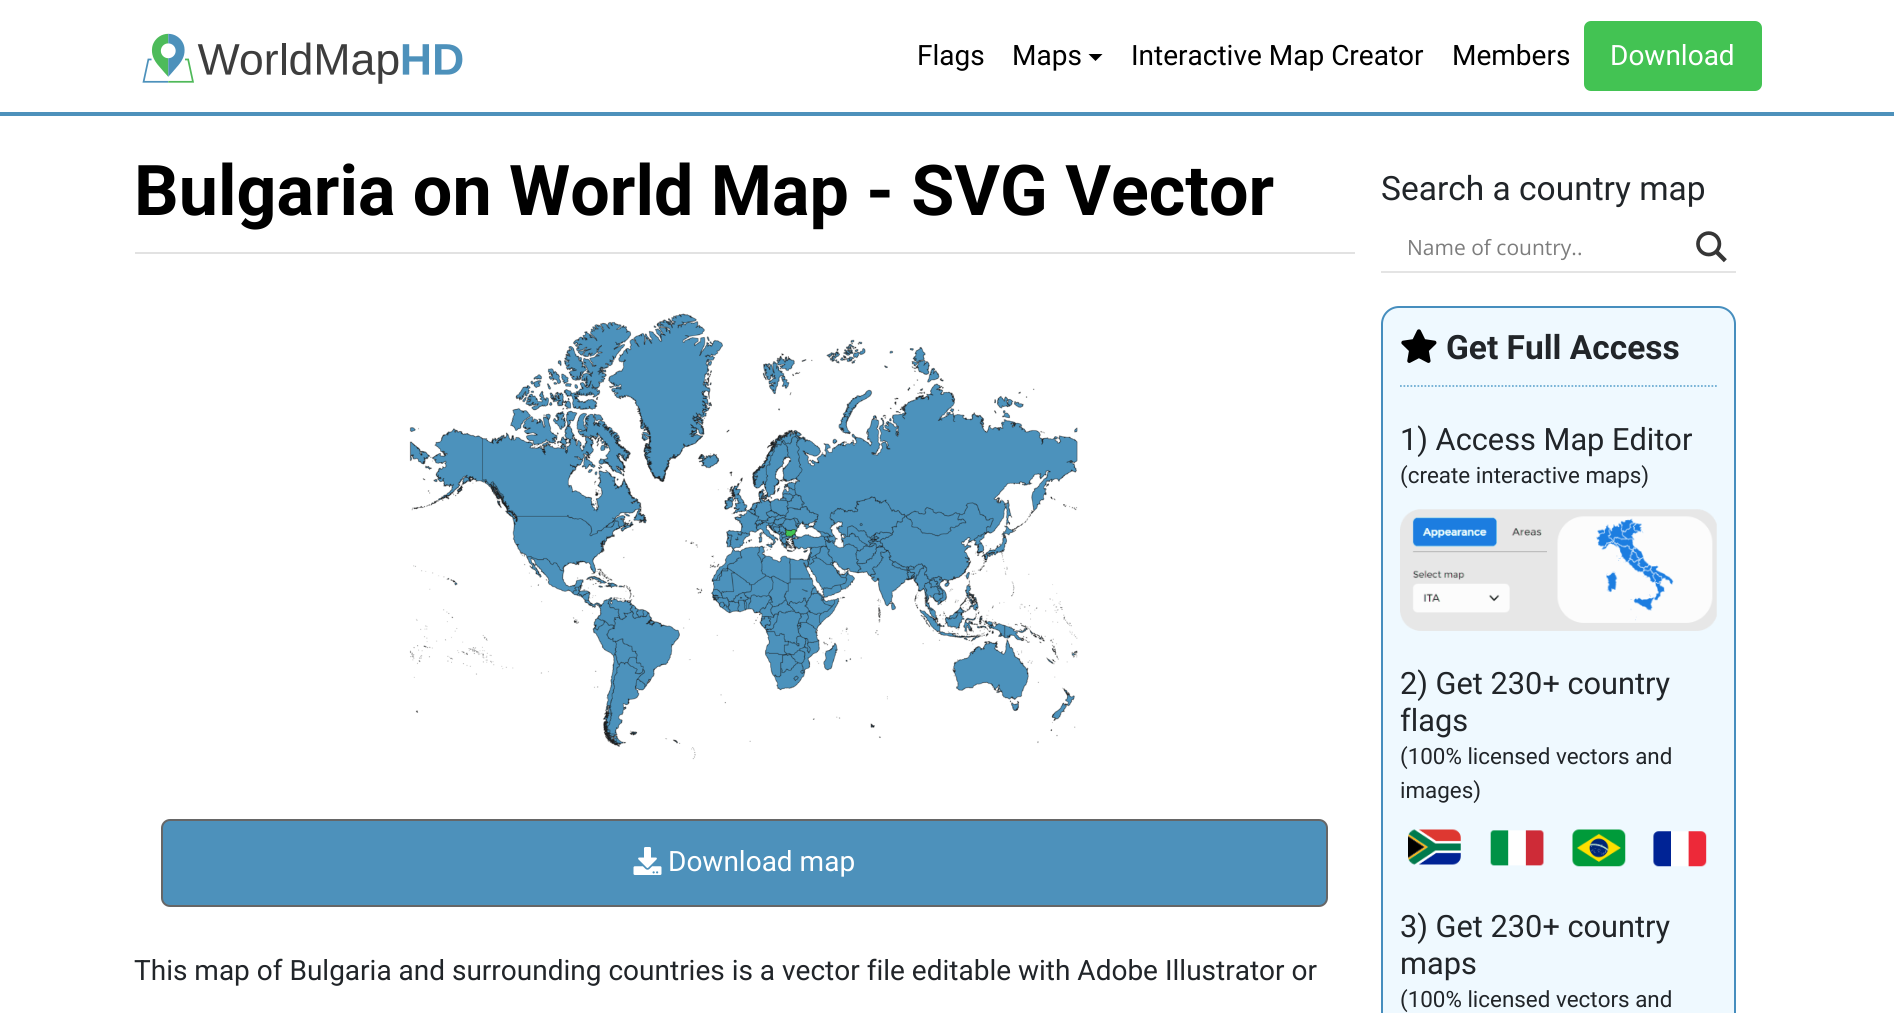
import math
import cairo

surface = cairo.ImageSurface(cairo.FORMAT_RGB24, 1894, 1013)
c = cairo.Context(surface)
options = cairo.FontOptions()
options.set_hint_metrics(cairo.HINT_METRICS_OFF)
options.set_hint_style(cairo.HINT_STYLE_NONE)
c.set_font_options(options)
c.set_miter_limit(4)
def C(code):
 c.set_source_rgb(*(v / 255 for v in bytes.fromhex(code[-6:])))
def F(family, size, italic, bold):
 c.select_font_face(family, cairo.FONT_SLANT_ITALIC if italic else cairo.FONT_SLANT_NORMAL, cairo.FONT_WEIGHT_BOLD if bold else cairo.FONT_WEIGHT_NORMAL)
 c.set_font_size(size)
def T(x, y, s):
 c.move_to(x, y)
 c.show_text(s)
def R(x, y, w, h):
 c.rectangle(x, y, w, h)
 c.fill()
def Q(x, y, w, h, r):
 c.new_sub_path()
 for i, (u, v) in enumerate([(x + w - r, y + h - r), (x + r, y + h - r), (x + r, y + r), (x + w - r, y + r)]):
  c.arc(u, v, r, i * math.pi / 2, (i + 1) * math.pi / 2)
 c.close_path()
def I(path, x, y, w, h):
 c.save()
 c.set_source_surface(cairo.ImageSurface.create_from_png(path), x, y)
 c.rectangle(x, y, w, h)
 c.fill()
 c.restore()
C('ffffff')
c.paint()
C('4d91bb')
R(0,112,1894,4)
I('1.png',142,33,321,51)
F('Roboto',28,0,0)
C('000000')
T(917,65,'Flags')
T(1012,65,'Maps')
c.new_path()
c.move_to(1088.5,54)
c.line_to(1102.5,54)
c.line_to(1095.5,61)
c.close_path()
c.fill()
T(1131,65,'Interactive Map Creator')
T(1452,65,'Members')
C('43c353')
Q(1584,21,178,70,7)
c.fill()
C('ffffff')
T(1610,65,'Download')
C('e2e2e2')
R(135,252,1220,2)
F('Roboto',70,0,1)
C('000000')
T(134,215,'Bulgaria on World Map - SVG Vector')
I('2.png',409,313,669,447)
C('4d91bb')
Q(162,820,1165,86,8)
c.fill_preserve()
C('666666')
c.stroke()
I('3.png',633,847,29,28)
F('Roboto',28,0,0)
C('ffffff')
T(668,871,'Download map')
C('212529')
T(134,980,'This map of Bulgaria and surrounding countries is a vector file editable with Adobe Illustrator or')
F('Roboto',33.5,0,0)
T(1381,200,'Search a country map')
C('e4e4e4')
R(1381,271,355,2)
F('Open Sans',21,0,0)
C('7d7d7d')
T(1407,255,'Name of country..')
I('4.png',1696,231,31,32)
C('eff9ff')
Q(1382,307,353,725,17)
c.fill_preserve()
C('468ebe')
c.stroke()
c.new_path()
c.move_to(1400,386)
c.line_to(1717,386)
C('6eadd3')
c.set_line_width(1.8)
c.set_dash([1.75,1.75])
c.stroke()
I('5.png',1401,329,36,34)
F('Roboto',33.5,0,1)
C('212529')
T(1446,359,'Get Full Access')
F('Roboto',30.75,0,0)
T(1400,450,'1) Access Map Editor')
F('Roboto',22.4,0,0)
T(1400,483,'(create interactive maps)')
I('6.png',1400,509,317,122)
F('Roboto',30.75,0,0)
T(1400,694,'2) Get 230+ country')
T(1400,731,'flags')
F('Roboto',22.4,0,0)
T(1400,764,'(100% licensed vectors and')
T(1400,798,'images)')
I('7.png',1408,829,299,38)
F('Roboto',30.75,0,0)
T(1400,937,'3) Get 230+ country')
T(1400,974,'maps')
F('Roboto',22.4,0,0)
T(1400,1007,'(100% licensed vectors and')
surface.write_to_png('o.png')
